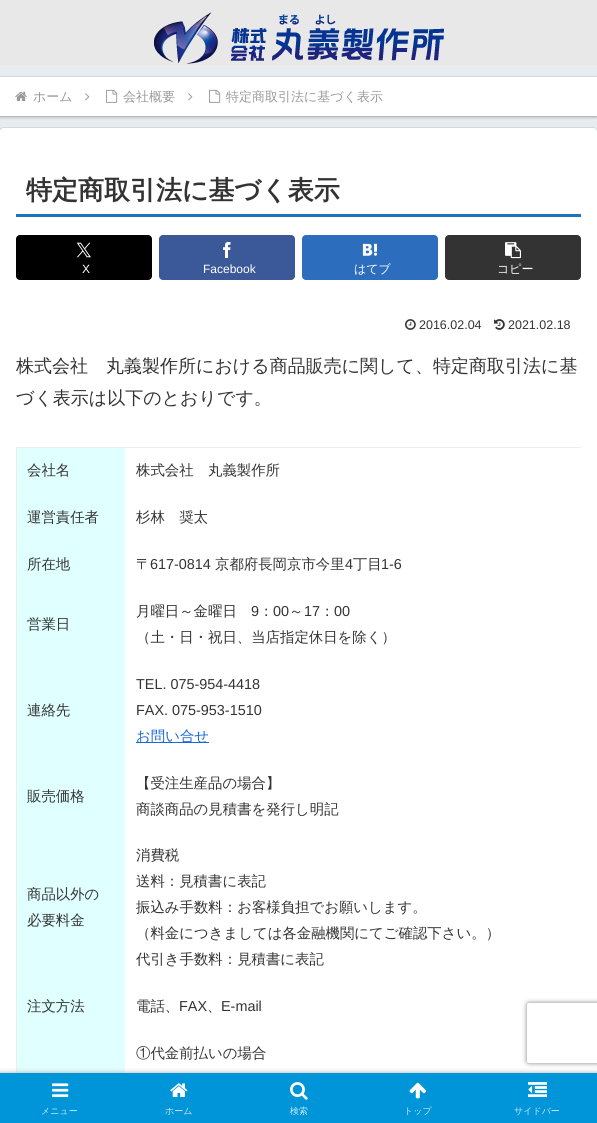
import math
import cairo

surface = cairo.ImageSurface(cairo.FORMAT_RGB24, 597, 1123)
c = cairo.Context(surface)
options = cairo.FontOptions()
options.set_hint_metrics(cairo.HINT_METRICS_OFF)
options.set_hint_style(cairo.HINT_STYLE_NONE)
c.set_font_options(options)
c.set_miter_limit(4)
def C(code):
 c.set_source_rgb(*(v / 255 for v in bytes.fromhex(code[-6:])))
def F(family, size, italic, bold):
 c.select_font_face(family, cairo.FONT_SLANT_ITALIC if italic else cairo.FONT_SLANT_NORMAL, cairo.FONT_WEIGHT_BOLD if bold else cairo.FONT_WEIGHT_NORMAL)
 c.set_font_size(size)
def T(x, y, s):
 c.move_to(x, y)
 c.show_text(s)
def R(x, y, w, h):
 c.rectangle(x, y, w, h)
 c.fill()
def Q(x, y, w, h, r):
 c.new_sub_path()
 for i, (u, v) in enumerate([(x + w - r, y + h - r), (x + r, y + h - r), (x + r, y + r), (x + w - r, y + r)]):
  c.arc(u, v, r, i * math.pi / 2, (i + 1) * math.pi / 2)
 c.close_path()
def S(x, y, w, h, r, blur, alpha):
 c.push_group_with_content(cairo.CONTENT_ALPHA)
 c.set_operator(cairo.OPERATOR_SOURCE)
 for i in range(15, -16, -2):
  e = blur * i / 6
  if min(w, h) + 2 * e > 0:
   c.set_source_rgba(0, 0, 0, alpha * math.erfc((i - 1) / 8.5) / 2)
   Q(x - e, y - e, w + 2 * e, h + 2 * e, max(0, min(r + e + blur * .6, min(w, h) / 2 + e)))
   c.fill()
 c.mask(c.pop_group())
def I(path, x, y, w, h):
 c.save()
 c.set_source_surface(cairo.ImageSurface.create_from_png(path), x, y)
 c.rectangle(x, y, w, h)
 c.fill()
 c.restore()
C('e6ecf0')
c.paint()
C('e8e8e8')
R(0,0,597,65)
I('1.png',154,12,290,52)
c.rectangle(-.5,76.5,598,40)
C('d4d9dd')
c.set_line_width(1)
c.stroke()
C('000000')
S(0,79,597,39,0,1,.16)
C('ffffff')
R(0,77,597,39)
I('2.png',15,91,12,10)
F('WenQuanYi Zen Hei Medium',13,0,0)
C('999999')
T(33,101,'ホーム')
I('3.png',85,93,5,8)
I('4.png',106,89,12,14)
T(123,101,'会社概要')
I('3.png',188,93,5,8)
I('4.png',209,89,12,14)
T(226,101,'特定商取引法に基づく表示')
Q(-.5,127.5,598,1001,4.5)
C('d4d9dd')
c.stroke()
C('ffffff')
Q(0,128,597,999,4)
c.fill()
C('1e73be')
R(16,214,565,3)
F('WenQuanYi Zen Hei',26,0,1)
C('333333')
T(26,199,'特定商取引法に基づく表示')
C('000000')
Q(16,235,136,45,4)
c.fill()
I('5.png',76,242,15,16)
F('Liberation Sans',12,0,0)
C('ffffff')
T(82,273,'X')
C('3b5998')
Q(159,235,136,45,4)
c.fill()
I('6.png',223,242,8,16)
C('ffffff')
T(203,273,'Facebook')
C('2c6ebd')
Q(302,235,136,45,4)
c.fill()
I('7.png',362,243,16,13)
F('WenQuanYi Zen Hei Medium',12,0,0)
C('ffffff')
T(354,273,'はてブ')
C('333333')
Q(445,235,136,45,4)
c.fill()
I('8.png',505,242,16,17)
C('ffffff')
T(497,273,'コピー')
I('9.png',405,319,11,11)
F('Liberation Sans',12.5,0,0)
C('333333')
T(419,329,'2016.02.04')
I('10.png',494,319,11,11)
T(508,329,'2021.02.18')
F('WenQuanYi Zen Hei Medium',18,0,0)
T(16,372,'株式会社　丸義製作所における商品販売に関して、特定商取引法に基')
T(16,404,'づく表示は以下のとおりです。')
C('eeeeee')
R(16,447,565,1)
R(16,494,1,579)
R(16,447,1,48)
C('e0ffff')
R(17,448,108,625)
F('WenQuanYi Zen Hei Medium',14.4,0,0)
C('333333')
T(27,475,'会社名')
T(136,475,'株式会社　丸義製作所')
T(27,522,'運営責任者')
T(136,522,'杉林　奨太')
T(27,569,'所在地')
T(136,569,'〒')
F('Liberation Sans',14.4,0,0)
T(150,569,'617-0814')
F('WenQuanYi Zen Hei Medium',14.4,0,0)
T(215,569,'京都府長岡京市今里')
F('Liberation Sans',14.4,0,0)
T(345,569,'4')
F('WenQuanYi Zen Hei Medium',14.4,0,0)
T(353,569,'丁目')
F('Liberation Sans',14.4,0,0)
T(381,569,'1-6')
F('WenQuanYi Zen Hei Medium',14.4,0,0)
T(27,629,'営業日')
T(136,616,'月曜日～金曜日')
F('Liberation Sans',14.4,0,0)
T(251,616,'9')
F('WenQuanYi Zen Hei Medium',14.4,0,0)
T(259,616,'：')
F('Liberation Sans',14.4,0,0)
T(273,616,'00')
F('WenQuanYi Zen Hei Medium',14.4,0,0)
T(289,616,'～')
F('Liberation Sans',14.4,0,0)
T(304,616,'17')
F('WenQuanYi Zen Hei Medium',14.4,0,0)
T(320,616,'：')
F('Liberation Sans',14.4,0,0)
T(334,616,'00')
F('WenQuanYi Zen Hei Medium',14.4,0,0)
T(136,642,'（土・日・祝日、当店指定休日を除く）')
T(27,715,'連絡先')
F('Liberation Sans',14.4,0,0)
T(136,689,'TEL. 075-954-4418')
T(136,715,'FAX. 075-953-1510')
C('1967d2')
R(136,742,73,1)
F('WenQuanYi Zen Hei Medium',14.4,0,0)
T(136,741,'お問い合せ')
C('333333')
T(27,801,'販売価格')
T(136,788,'【受注生産品の場合】')
T(136,814,'商談商品の見積書を発行し明記')
T(27,899,'商品以外の')
T(27,925,'必要料金')
T(136,860,'消費税')
T(136,886,'送料：見積書に表記')
T(136,912,'振込み手数料：お客様負担でお願いします。')
T(136,938,'（料金につきましては各金融機関にてご確認下さい。）')
T(136,964,'代引き手数料：見積書に表記')
T(27,1011,'注文方法')
T(136,1011,'電話、')
F('Liberation Sans',14.4,0,0)
T(179,1011,'FAX')
F('WenQuanYi Zen Hei Medium',14.4,0,0)
T(207,1011,'、')
F('Liberation Sans',14.4,0,0)
T(221,1011,'E-mail')
F('WenQuanYi Zen Hei Medium',14.4,0,0)
T(136,1058,'①代金前払いの場合')
C('a9a9a9')
S(0,1073,597,50,0,2.5,1)
C('0095d9')
R(0,1073,597,50)
I('11.png',52,1083,17,14)
F('WenQuanYi Zen Hei Medium',9,0,0)
C('cceaf7')
T(41,1114,'メニュー')
I('12.png',170,1083,18,14)
T(165,1114,'ホーム')
I('13.png',290,1082,18,18)
T(290,1114,'検索')
I('14.png',409,1082,17,17)
T(404,1114,'トップ')
I('15.png',528,1082,19,15)
T(514,1114,'サイドバー')
c.save()
c.set_fill_rule(cairo.FILL_RULE_EVEN_ODD)
c.new_path()
c.move_to(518,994)
c.line_to(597,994)
c.line_to(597,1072)
c.line_to(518,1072)
c.close_path()
c.move_to(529,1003)
c.line_to(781,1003)
c.curve_to(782,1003,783,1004,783,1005)
c.line_to(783,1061)
c.curve_to(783,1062,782,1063,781,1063)
c.line_to(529,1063)
c.curve_to(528,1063,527,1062,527,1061)
c.line_to(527,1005)
c.curve_to(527,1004,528,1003,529,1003)
c.close_path()
c.clip()
C('808080')
S(527,1003,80,60,2,2.5,1)
c.restore()
surface.write_to_png('o.png')
